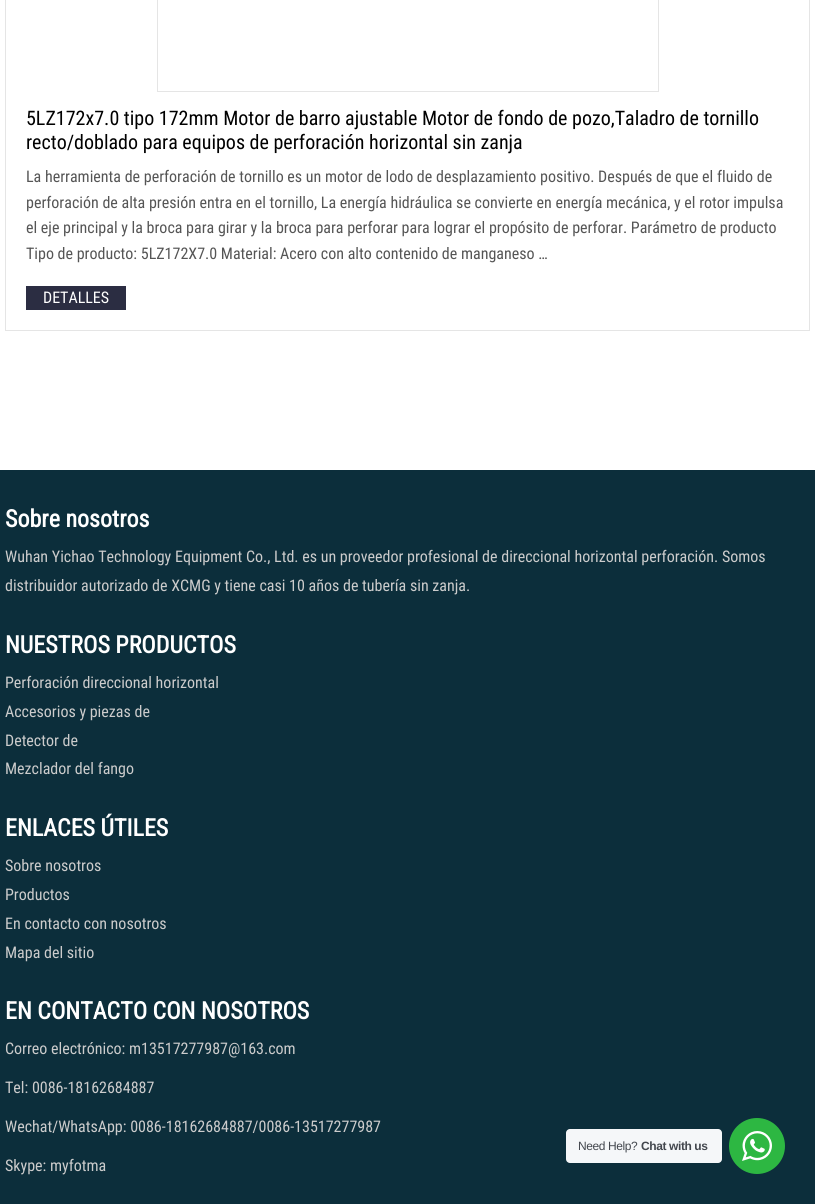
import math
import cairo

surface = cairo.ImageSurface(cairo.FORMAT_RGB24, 815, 1204)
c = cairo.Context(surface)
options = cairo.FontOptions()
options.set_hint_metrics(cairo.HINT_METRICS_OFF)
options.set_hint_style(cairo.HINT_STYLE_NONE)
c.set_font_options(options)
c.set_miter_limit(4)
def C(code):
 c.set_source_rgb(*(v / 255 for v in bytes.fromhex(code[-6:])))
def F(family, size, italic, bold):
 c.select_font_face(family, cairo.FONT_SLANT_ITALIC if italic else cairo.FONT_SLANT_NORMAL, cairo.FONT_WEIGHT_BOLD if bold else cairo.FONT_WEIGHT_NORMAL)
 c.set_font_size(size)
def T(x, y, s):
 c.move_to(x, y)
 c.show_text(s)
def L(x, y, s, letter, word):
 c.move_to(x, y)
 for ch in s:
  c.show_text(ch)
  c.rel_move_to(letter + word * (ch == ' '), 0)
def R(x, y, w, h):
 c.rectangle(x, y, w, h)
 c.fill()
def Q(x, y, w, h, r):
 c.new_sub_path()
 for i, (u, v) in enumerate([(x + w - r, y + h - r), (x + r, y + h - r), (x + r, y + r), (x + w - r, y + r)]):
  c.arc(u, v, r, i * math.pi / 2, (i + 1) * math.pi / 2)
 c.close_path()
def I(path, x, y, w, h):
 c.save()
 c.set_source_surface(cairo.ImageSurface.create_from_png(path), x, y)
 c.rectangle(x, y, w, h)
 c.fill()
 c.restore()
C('ffffff')
c.paint()
c.rectangle(5.5,-.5,804,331)
C('e5e5e5')
c.set_line_width(1)
c.stroke()
c.rectangle(157.5,-.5,501,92)
c.stroke()
F('Roboto Condensed',20,0,0)
C('000000')
T(26,125,'5LZ172x7.0 tipo 172mm Motor de barro ajustable Motor de fondo de pozo,Taladro de tornillo')
T(26,149,'recto/doblado para equipos de perforación horizontal sin zanja')
F('Roboto Condensed',16,0,0)
C('555555')
T(26,182,'La herramienta de perforación de tornillo es un motor de lodo de desplazamiento positivo. Después de que el fluido de')
T(26,208,'perforación de alta presión entra en el tornillo, La energía hidráulica se convierte en energía mecánica, y el rotor impulsa')
T(26,233,'el eje principal y la broca para girar y la broca para perforar para lograr el propósito de perforar. Parámetro de producto')
T(26,259,'Tipo de producto: 5LZ172X7.0 Material: Acero con alto contenido de manganeso …')
C('2b2d42')
R(26,286,100,24)
C('ffffff')
T(43,303,'DETALLES')
C('0c2e3b')
R(0,470,815,734)
F('Roboto Condensed',24,0,1)
C('ffffff')
T(5,527,'Sobre nosotros')
F('Roboto Condensed',16,0,0)
C('cccccc')
T(5,562,'Wuhan Yichao Technology Equipment Co., Ltd. es un proveedor profesional de direccional horizontal perforación. Somos')
T(5,591,'distribuidor autorizado de XCMG y tiene casi 10 años de tubería sin zanja.')
F('Roboto Condensed',24,0,1)
C('ffffff')
T(5,653,'NUESTROS PRODUCTOS')
F('Roboto Condensed',16,0,0)
C('cccccc')
T(5,688,'Perforación direccional horizontal')
T(5,717,'Accesorios y piezas de')
T(5,746,'Detector de')
T(5,774,'Mezclador del fango')
F('Roboto Condensed',24,0,1)
C('ffffff')
T(5,836,'ENLACES ÚTILES')
F('Roboto Condensed',16,0,0)
C('cccccc')
T(5,871,'Sobre nosotros')
T(5,900,'Productos')
T(5,929,'En contacto con nosotros')
T(5,958,'Mapa del sitio')
F('Roboto Condensed',24,0,1)
C('ffffff')
T(5,1019,'EN CONTACTO CON NOSOTROS')
F('Roboto Condensed',16,0,0)
C('cccccc')
T(5,1054,'Correo electrónico: m13517277987@163.com')
T(5,1093,'Tel: 0086-18162684887')
T(5,1132,'Wechat/WhatsApp: 0086-18162684887/0086-13517277987')
T(5,1171,'Skype: myfotma')
C('f5f7f9')
Q(566,1129,156,34,4)
c.fill()
F('Liberation Sans',12,0,0)
C('43474e')
L(578,1150,'Need Help?',-.4,0)
F('Liberation Sans',12,0,1)
L(641,1150,'Chat with us',-.4,0)
C('2db742')
c.new_path()
c.arc(757,1146,28,0,2 * math.pi)
c.fill()
I('1.png',742,1131,30,30)
surface.write_to_png('o.png')
